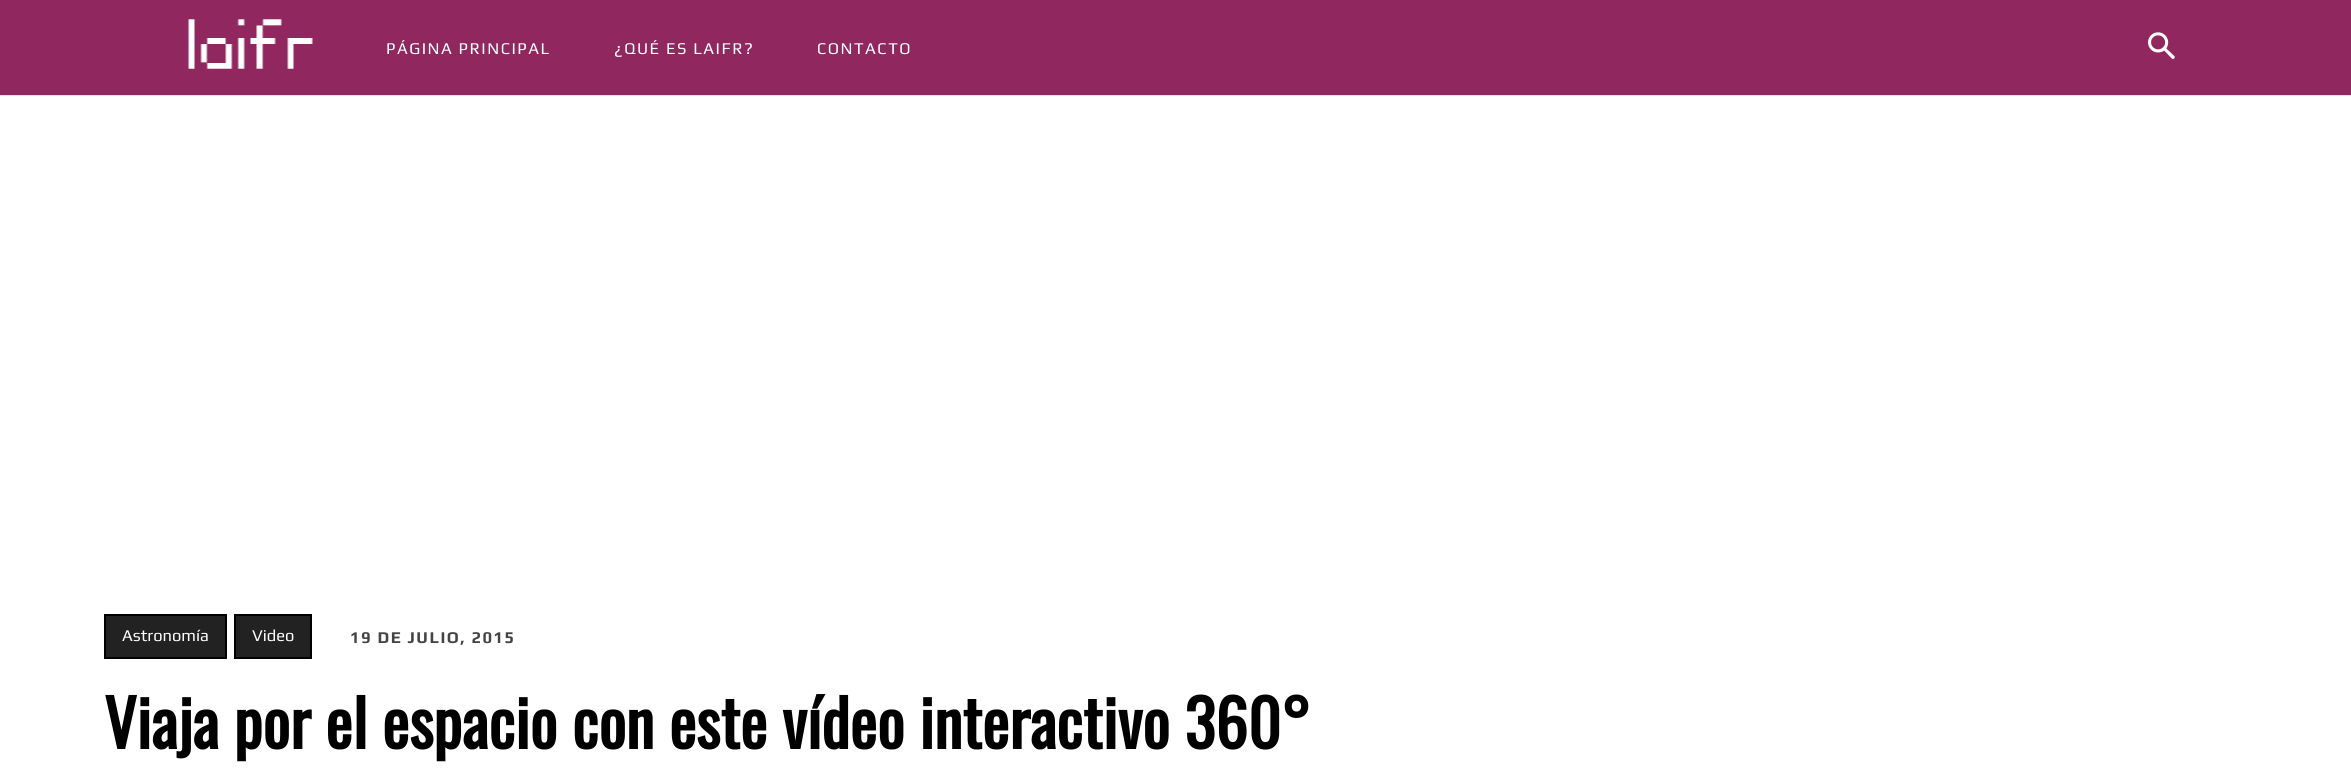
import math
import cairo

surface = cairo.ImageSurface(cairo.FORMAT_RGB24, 2351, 775)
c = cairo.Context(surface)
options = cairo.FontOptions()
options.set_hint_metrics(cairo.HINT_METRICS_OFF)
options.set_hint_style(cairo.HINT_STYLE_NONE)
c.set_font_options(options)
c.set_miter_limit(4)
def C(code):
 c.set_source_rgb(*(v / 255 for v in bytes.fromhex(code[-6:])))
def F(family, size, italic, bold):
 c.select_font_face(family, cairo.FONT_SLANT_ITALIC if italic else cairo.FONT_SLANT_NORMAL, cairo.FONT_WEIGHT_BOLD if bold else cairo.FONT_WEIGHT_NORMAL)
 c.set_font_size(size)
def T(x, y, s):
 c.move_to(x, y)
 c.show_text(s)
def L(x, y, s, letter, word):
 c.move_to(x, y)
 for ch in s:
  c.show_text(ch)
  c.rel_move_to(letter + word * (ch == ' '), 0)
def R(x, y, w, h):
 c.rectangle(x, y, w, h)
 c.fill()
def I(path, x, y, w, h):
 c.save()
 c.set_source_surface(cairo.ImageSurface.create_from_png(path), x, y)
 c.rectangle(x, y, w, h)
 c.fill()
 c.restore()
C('ffffff')
c.paint()
C('90275f')
R(0,0,2351,95)
C('e5e5e5')
R(0,95,2351,1)
I('1.png',188,19,125,50)
F('Play',16.5,0,0)
C('ffffff')
L(386,54,'PÁGINA PRINCIPAL',1.5,0)
L(614,54,'¿QUÉ ES LAIFR?',1.5,0)
L(817,54,'CONTACTO',1.5,0)
I('2.png',2148,32,27,27)
C('222222')
c.rectangle(105,615,121,43)
c.fill_preserve()
C('000000')
c.stroke()
C('ffffff')
T(122,641,'Astronomía')
C('222222')
c.rectangle(235,615,76,43)
c.fill_preserve()
C('000000')
c.stroke()
C('ffffff')
T(252,641,'Video')
F('Play',16.5,0,1)
C('444444')
L(350,643,'19 DE JULIO, 2015',1.5,0)
F('Oswald',64.5,0,1)
C('000000')
T(104,749,'Viaja por el espacio con este vídeo interactivo 360°')
surface.write_to_png('o.png')
